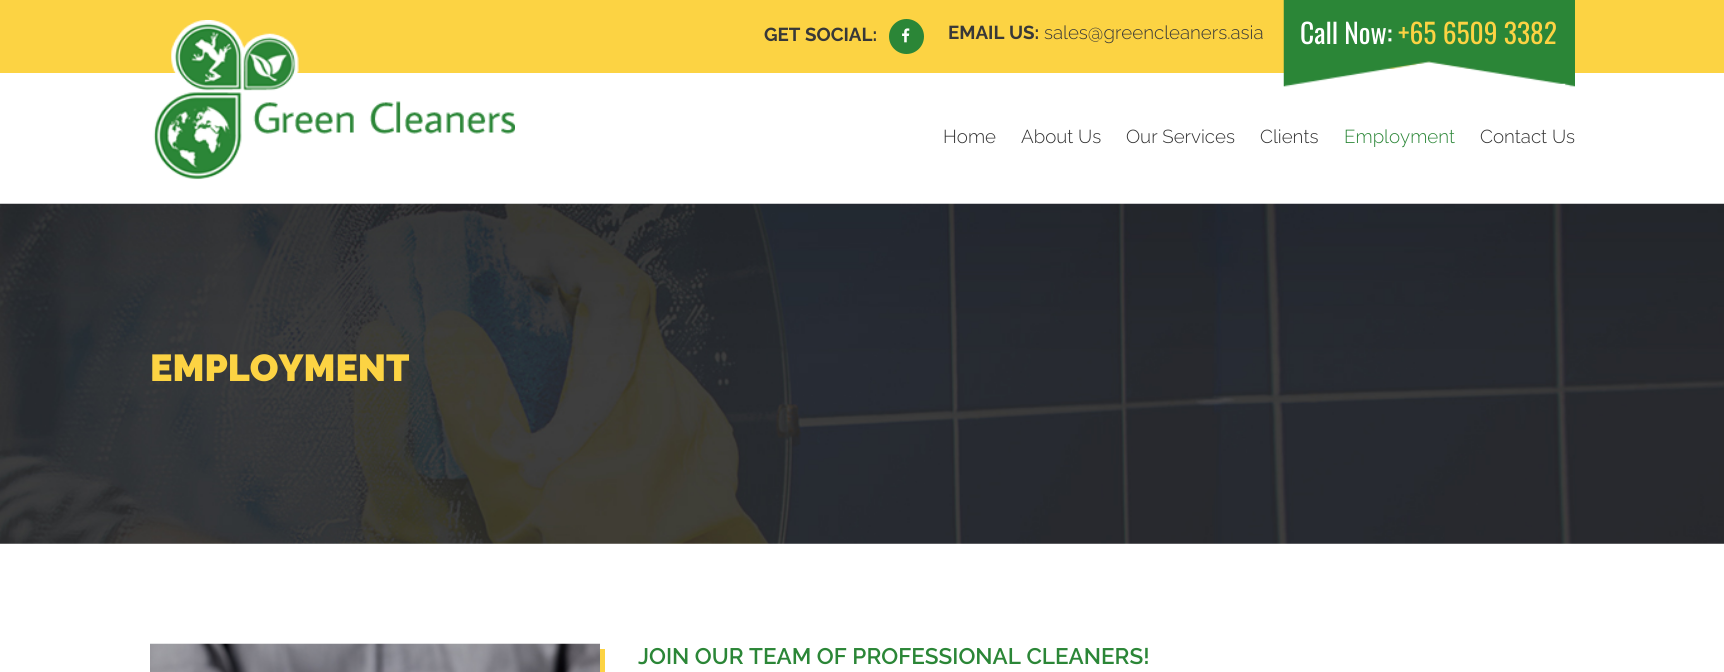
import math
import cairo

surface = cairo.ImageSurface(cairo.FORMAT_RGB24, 1724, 672)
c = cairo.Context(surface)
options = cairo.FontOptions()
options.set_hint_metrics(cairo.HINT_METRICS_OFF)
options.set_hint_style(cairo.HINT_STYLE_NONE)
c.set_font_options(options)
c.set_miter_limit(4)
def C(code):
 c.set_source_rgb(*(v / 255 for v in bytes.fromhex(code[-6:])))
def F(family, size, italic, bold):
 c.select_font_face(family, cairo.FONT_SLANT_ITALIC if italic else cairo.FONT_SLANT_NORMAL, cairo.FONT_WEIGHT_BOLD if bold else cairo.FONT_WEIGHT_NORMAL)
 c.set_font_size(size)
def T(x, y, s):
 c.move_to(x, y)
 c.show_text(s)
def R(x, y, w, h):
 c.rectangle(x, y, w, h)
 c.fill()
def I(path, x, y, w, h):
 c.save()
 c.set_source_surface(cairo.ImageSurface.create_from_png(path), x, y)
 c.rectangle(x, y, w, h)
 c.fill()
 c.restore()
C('ffffff')
c.paint()
C('fcd343')
R(0,0,1724,73)
F('Raleway',18.75,0,1)
C('383838')
T(764,41,'GET SOCIAL:')
C('2b8637')
c.new_path()
c.arc(906.5,36.5,17.5,0,2 * math.pi)
c.fill()
I('1.png',902,28,8,15)
C('383838')
T(948,39,'EMAIL US:')
F('Raleway Light',18.75,0,0)
T(1044,39,'sales@greencleaners.asia')
I('2.png',1283,0,292,87)
F('Oswald',27.5,0,0)
C('ffffff')
T(1300,44,'Call Now:')
C('fcd343')
T(1398,44,'+65 6509 3382')
I('3.png',153,20,362,160)
F('Raleway Light',18.75,0,0)
C('323232')
T(943,143,'Home')
T(1021,143,'About Us')
T(1126,143,'Our Services')
T(1260,143,'Clients')
C('2b8637')
T(1344,143,'Employment')
C('323232')
T(1480,143,'Contact Us')
I('4.png',0,203,1724,341)
F('Raleway Black',37.5,0,0)
C('fcd343')
T(150,381,'EMPLOYMENT')
c.new_path()
c.move_to(155,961)
c.line_to(155,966)
c.line_to(605,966)
c.line_to(605,649)
c.line_to(600,649)
c.line_to(600,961)
c.close_path()
c.fill()
I('5.png',150,643,450,29)
F('Raleway SemiBold',22.5,0,0)
C('2b8637')
T(638,664,'JOIN OUR TEAM OF PROFESSIONAL CLEANERS!')
surface.write_to_png('o.png')
